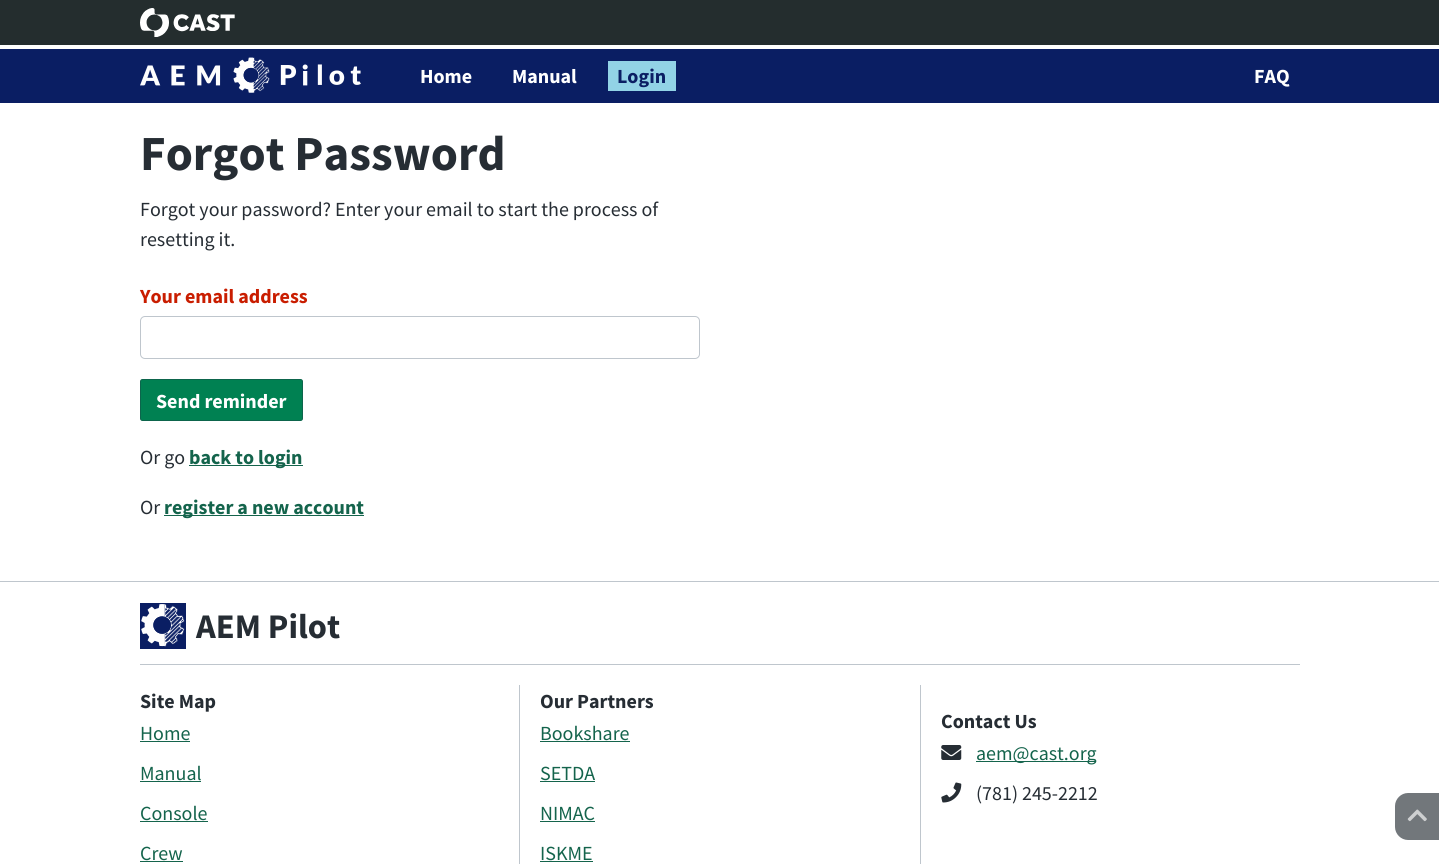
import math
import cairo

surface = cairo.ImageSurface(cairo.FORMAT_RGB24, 1439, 864)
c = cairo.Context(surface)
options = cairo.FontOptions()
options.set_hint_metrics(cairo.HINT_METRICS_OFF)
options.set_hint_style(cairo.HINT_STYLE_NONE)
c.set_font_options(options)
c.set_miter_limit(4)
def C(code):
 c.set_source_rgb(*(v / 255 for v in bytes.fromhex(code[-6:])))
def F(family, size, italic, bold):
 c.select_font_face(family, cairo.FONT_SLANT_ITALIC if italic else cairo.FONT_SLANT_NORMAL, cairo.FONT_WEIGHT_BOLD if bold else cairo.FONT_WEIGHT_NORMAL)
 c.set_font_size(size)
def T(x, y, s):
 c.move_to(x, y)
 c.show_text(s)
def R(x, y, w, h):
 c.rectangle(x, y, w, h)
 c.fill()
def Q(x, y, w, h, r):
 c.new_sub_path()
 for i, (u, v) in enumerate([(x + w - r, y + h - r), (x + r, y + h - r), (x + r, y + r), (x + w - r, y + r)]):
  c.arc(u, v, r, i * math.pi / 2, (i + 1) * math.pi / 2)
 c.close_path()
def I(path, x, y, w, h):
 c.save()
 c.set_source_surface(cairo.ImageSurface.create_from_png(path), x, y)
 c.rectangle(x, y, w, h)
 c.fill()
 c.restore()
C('ffffff')
c.paint()
C('242d2e')
R(0,0,1439,45)
I('1.png',140,8,95,29)
C('0a1e63')
R(0,49,1439,54)
I('2.png',140,57,221,36)
F('Source Sans Pro',20,0,1)
C('ffffff')
T(420,83,'Home')
T(512,83,'Manual')
C('92d3e6')
R(608,61,68,30)
C('0a1e63')
T(617,83,'Login')
C('ffffff')
T(1254,83,'FAQ')
F('Source Sans Pro',49,0,1)
C('262d34')
T(140,170,'Forgot Password')
F('Source Sans Pro',20,0,0)
T(140,216,'Forgot your password? Enter your email to start the process of')
T(140,246,'resetting it.')
F('Source Sans Pro',20,0,1)
C('c91d00')
T(140,303,'Your email address')
Q(140.5,316.5,559,42,4.5)
C('bfc6cd')
c.set_line_width(1)
c.stroke()
C('008152')
Q(140.5,379.5,162,41,2)
c.fill_preserve()
C('0d654c')
c.stroke()
C('ffffff')
T(156,408,'Send reminder')
F('Source Sans Pro',20,0,0)
C('262d34')
T(140,464,'Or go')
C('14644c')
R(189,465,114,1)
F('Source Sans Pro',20,0,1)
T(189,464,'back to login')
F('Source Sans Pro',20,0,0)
C('262d34')
T(140,514,'Or')
C('14644c')
R(164,515,200,1)
F('Source Sans Pro',20,0,1)
T(164,514,'register a new account')
C('bfc6cd')
R(0,581,1439,1)
I('3.png',140,603,46,46)
F('Source Sans Pro',34.5,0,1)
C('262d34')
T(196,638,'AEM Pilot')
C('bfc6cd')
R(140,664,1160,1)
R(519,685,1,179)
F('Source Sans Pro',20,0,1)
C('262d34')
T(140,708,'Site Map')
F('Source Sans Pro',20,0,0)
C('14644c')
T(140,740,'Home')
R(140,741,50,1)
T(140,780,'Manual')
R(140,781,61,1)
T(140,820,'Console')
R(140,821,68,1)
T(140,860,'Crew')
R(140,861,43,1)
C('bfc6cd')
R(920,685,1,179)
F('Source Sans Pro',20,0,1)
C('262d34')
T(540,708,'Our Partners')
F('Source Sans Pro',20,0,0)
C('14644c')
T(540,740,'Bookshare')
R(540,741,90,1)
T(540,780,'SETDA')
R(540,781,55,1)
T(540,820,'NIMAC')
R(540,821,55,1)
T(540,860,'ISKME')
R(540,861,53,1)
F('Source Sans Pro',20,0,1)
C('262d34')
T(941,728,'Contact Us')
I('4.png',941,745,21,15)
C('14644c')
R(976,761,120,1)
F('Source Sans Pro',20,0,0)
T(976,760,'aem@cast.org')
I('5.png',941,782,21,21)
C('262d34')
T(976,800,'(781) 245-2212')
C('72777b')
c.new_path()
c.move_to(1408,793)
c.line_to(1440,793)
c.line_to(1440,840)
c.line_to(1408,840)
c.curve_to(1401,840,1395,834,1395,827)
c.line_to(1395,806)
c.curve_to(1395,799,1401,793,1408,793)
c.close_path()
c.fill()
I('6.png',1407,809,20,13)
surface.write_to_png('o.png')
